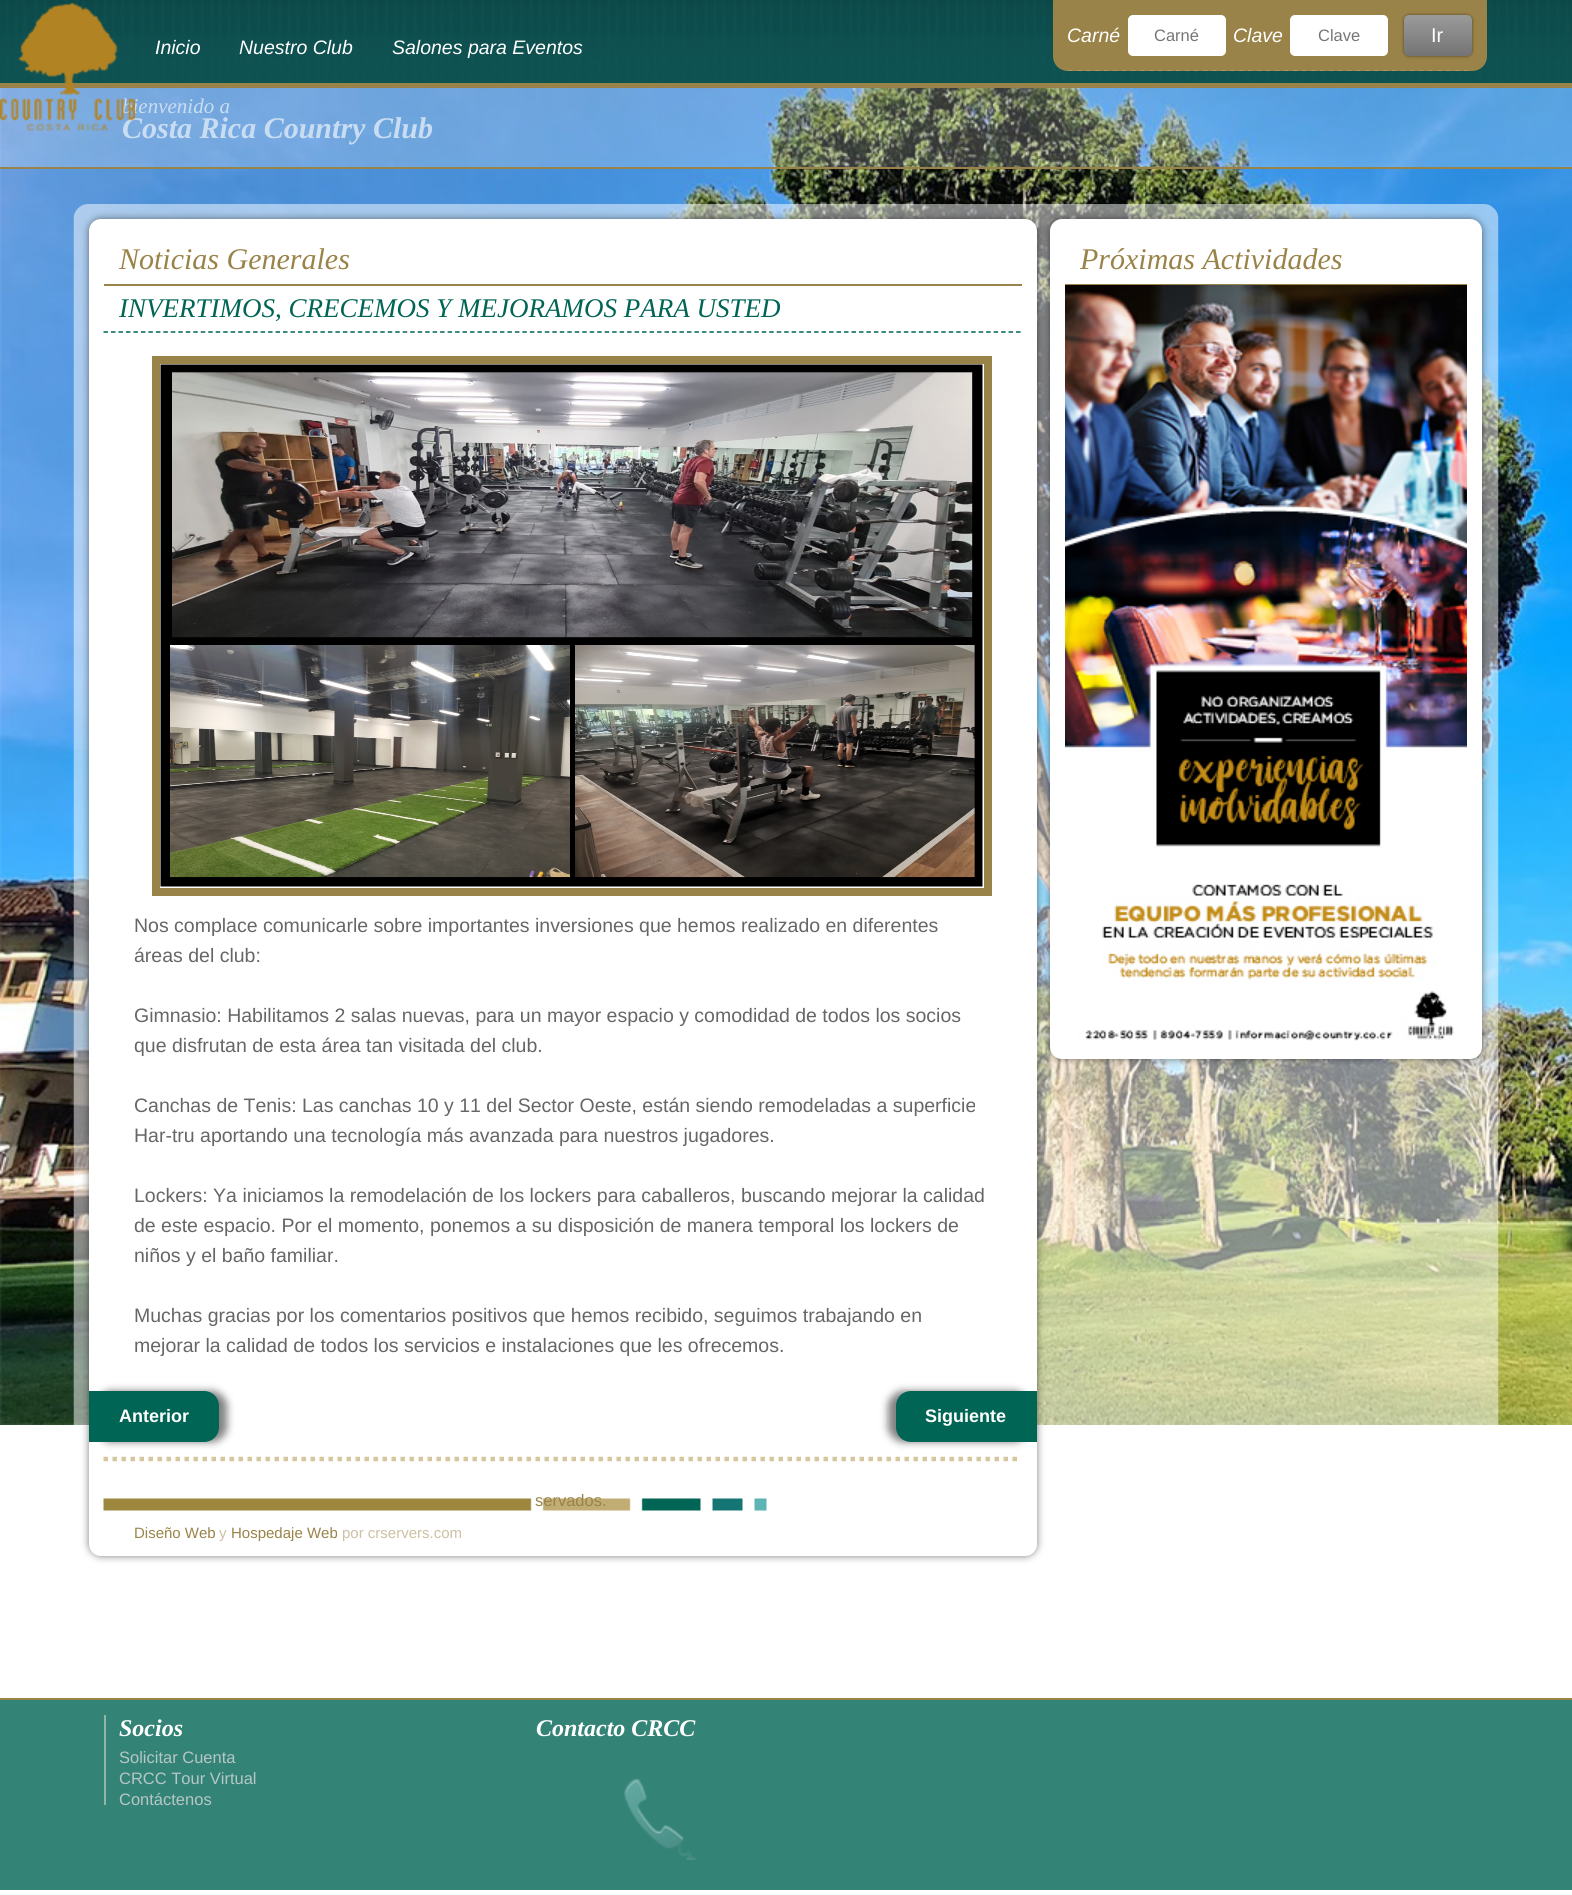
import math
import cairo

surface = cairo.ImageSurface(cairo.FORMAT_RGB24, 1572, 1895)
c = cairo.Context(surface)
options = cairo.FontOptions()
options.set_hint_metrics(cairo.HINT_METRICS_OFF)
options.set_hint_style(cairo.HINT_STYLE_NONE)
c.set_font_options(options)
c.set_miter_limit(4)
def C(code):
 c.set_source_rgb(*(v / 255 for v in bytes.fromhex(code[-6:])))
def F(family, size, italic, bold):
 c.select_font_face(family, cairo.FONT_SLANT_ITALIC if italic else cairo.FONT_SLANT_NORMAL, cairo.FONT_WEIGHT_BOLD if bold else cairo.FONT_WEIGHT_NORMAL)
 c.set_font_size(size)
def T(x, y, s):
 c.move_to(x, y)
 c.show_text(s)
def R(x, y, w, h):
 c.rectangle(x, y, w, h)
 c.fill()
def Q(x, y, w, h, r):
 c.new_sub_path()
 for i, (u, v) in enumerate([(x + w - r, y + h - r), (x + r, y + h - r), (x + r, y + r), (x + w - r, y + r)]):
  c.arc(u, v, r, i * math.pi / 2, (i + 1) * math.pi / 2)
 c.close_path()
def S(x, y, w, h, r, blur, alpha):
 c.push_group_with_content(cairo.CONTENT_ALPHA)
 c.set_operator(cairo.OPERATOR_SOURCE)
 for i in range(15, -16, -2):
  e = blur * i / 6
  if min(w, h) + 2 * e > 0:
   c.set_source_rgba(0, 0, 0, alpha * math.erfc((i - 1) / 8.5) / 2)
   Q(x - e, y - e, w + 2 * e, h + 2 * e, max(0, min(r + e + blur * .6, min(w, h) / 2 + e)))
   c.fill()
 c.mask(c.pop_group())
def I(path, x, y, w, h):
 c.save()
 c.set_source_surface(cairo.ImageSurface.create_from_png(path), x, y)
 c.rectangle(x, y, w, h)
 c.fill()
 c.restore()
C('ffffff')
c.paint()
I('1.png',0,0,1572,83)
C('9a8348')
R(0,83,1572,5)
c.new_path()
c.move_to(1053,0)
c.line_to(1487,0)
c.line_to(1487,56)
c.curve_to(1487,64.5,1480.5,71,1472,71)
c.line_to(1068,71)
c.curve_to(1059.5,71,1053,64.5,1053,56)
c.close_path()
c.fill()
F('Liberation Sans',19.5,1,0)
C('ffffff')
T(1067,42,'Carné')
Q(1129,16,96,39,4)
c.fill_preserve()
c.stroke()
F('Liberation Sans',16.5,0,0)
C('757575')
T(1154,41,'Carné')
F('Liberation Sans',19.5,1,0)
C('ffffff')
T(1233,42,'Clave')
Q(1291,16,96,39,4)
c.fill_preserve()
c.stroke()
F('Liberation Sans',16.5,0,0)
C('757575')
T(1318,41,'Clave')
C('000000')
S(1404,15,68,41,5,1.5,.5)
gradient = cairo.LinearGradient(1438,15,1438,56)
gradient.add_color_stop_rgba(0,0.604,0.604,0.604,1)
gradient.add_color_stop_rgba(1,0.455,0.455,0.455,1)
c.set_source(gradient)
Q(1404,15,68,41,5)
c.fill()
F('Liberation Sans',20,0,0)
C('ffffff')
T(1431,42,'Ir')
c.save()
c.new_path()
c.move_to(1053,0)
c.line_to(1487,0)
c.line_to(1487,56)
c.curve_to(1487,64.5,1480.5,71,1472,71)
c.line_to(1068,71)
c.curve_to(1059.5,71,1053,64.5,1053,56)
c.close_path()
c.clip()
c.new_path()
c.move_to(1068,73)
c.line_to(1471.5,73)
C('e4d1a0')
c.set_line_width(4.5)
c.set_dash([4.5,4.5])
c.stroke()
c.restore()
I('3.png',0,88,1572,1337)
c.set_source_rgba(1,1,1,0.2)
R(0,88,1572,79)
F('Liberation Serif',21,1,0)
C('c9ddf2')
T(122,113,'bienvenido a')
F('Liberation Serif',30,1,1)
T(122,138,'Costa Rica Country Club')
I('2.png',0,2,135,129)
F('Liberation Sans',19.5,1,0)
C('ffffff')
T(155,54,'Inicio')
T(239,54,'Nuestro Club')
T(392,54,'Salones para Eventos')
C('9a8348')
R(0,167,1572,2)
I('4.png',73,204,1426,1221)
C('000000')
S(89,219,948,1337,12,4,.5)
C('ffffff')
Q(89,219,948,1337,12)
c.fill()
C('9a8348')
R(104,284,918,2)
F('Liberation Serif',30,1,0)
T(119,269,'Noticias Generales')
c.new_path()
c.move_to(103.5,332)
c.line_to(1021.5,332)
C('006554')
c.set_line_width(1.5)
c.set_dash([4.5,2.98])
c.stroke()
F('Liberation Serif',27,1,0)
T(119,317,'INVERTIMOS, CRECEMOS Y MEJORAMOS PARA USTED')
c.rectangle(156,360,832,532)
C('9a8348')
c.set_line_width(8)
c.set_dash([])
c.stroke()
I('5.png',160,364,823,523)
F('Liberation Sans',19.5,0,0)
C('666666')
T(134,932,'Nos complace comunicarle sobre importantes inversiones que hemos realizado en diferentes')
T(134,962,'áreas del club:')
T(134,1022,'Gimnasio: Habilitamos 2 salas nuevas, para un mayor espacio y comodidad de todos los socios')
T(134,1052,'que disfrutan de esta área tan visitada del club.')
T(134,1112,'Canchas de Tenis: Las canchas 10 y 11 del Sector Oeste, están siendo remodeladas a superficie')
T(134,1142,'Har-tru aportando una tecnología más avanzada para nuestros jugadores.')
T(134,1202,'Lockers: Ya iniciamos la remodelación de los lockers para caballeros, buscando mejorar la calidad')
T(134,1232,'de este espacio. Por el momento, ponemos a su disposición de manera temporal los lockers de')
T(134,1262,'niños y el baño familiar.')
T(134,1322,'Muchas gracias por los comentarios positivos que hemos recibido, seguimos trabajando en')
T(134,1352,'mejorar la calidad de todos los servicios e instalaciones que les ofrecemos.')
C('000000')
S(96,1391,131,51,15,4,.5)
C('006554')
c.new_path()
c.move_to(89,1391)
c.line_to(204,1391)
c.curve_to(212.5,1391,219,1397.5,219,1406)
c.line_to(219,1427)
c.curve_to(219,1435.5,212.5,1442,204,1442)
c.line_to(89,1442)
c.close_path()
c.fill()
F('Liberation Sans',18,0,1)
C('ffffff')
T(119,1422,'Anterior')
C('000000')
S(888,1391,141,51,15,4,.5)
C('006554')
c.new_path()
c.move_to(911,1391)
c.line_to(1037,1391)
c.line_to(1037,1442)
c.line_to(911,1442)
c.curve_to(902.5,1442,896,1435.5,896,1427)
c.line_to(896,1406)
c.curve_to(896,1397.5,902.5,1391,911,1391)
c.close_path()
c.fill()
C('ffffff')
T(925,1422,'Siguiente')
I('6.png',103,1498,664,13)
c.new_path()
c.move_to(103.5,1459)
c.line_to(1021.5,1459)
C('d5c69d')
c.set_line_width(4.5)
c.set_dash([4.5,4.5])
c.stroke()
F('Liberation Sans',16.5,0,0)
C('9a8348')
T(535,1506,'servados.')
F('Liberation Sans',15,0,0)
T(134,1538,'Diseño Web')
C('ccc1a3')
T(219,1538,'y')
C('9a8348')
T(231,1538,'Hospedaje Web')
C('ccc1a3')
T(342,1538,'por crservers.com')
C('000000')
S(1050,219,432,840,12,4,.5)
C('ffffff')
Q(1050,219,432,840,12)
c.fill()
C('9a8348')
R(1065,284,402,1)
F('Liberation Serif',30,1,0)
T(1080,269,'Próximas Actividades')
I('7.png',1065,285,402,756)
C('338476')
R(0,1700,1572,190)
C('9a8348')
R(0,1698,1572,2)
C('91b6a6')
R(104,1715,2,90)
F('Liberation Serif',24,1,1)
C('ffffff')
T(119,1736,'Socios')
F('Liberation Sans',16.5,0,0)
C('b7c6c6')
T(119,1763,'Solicitar Cuenta')
T(119,1784,'CRCC Tour Virtual')
T(119,1805,'Contáctenos')
F('Liberation Serif',24,1,1)
C('ffffff')
T(536,1736,'Contacto CRCC')
I('8.png',624,1778,72,82)
surface.write_to_png('o.png')
